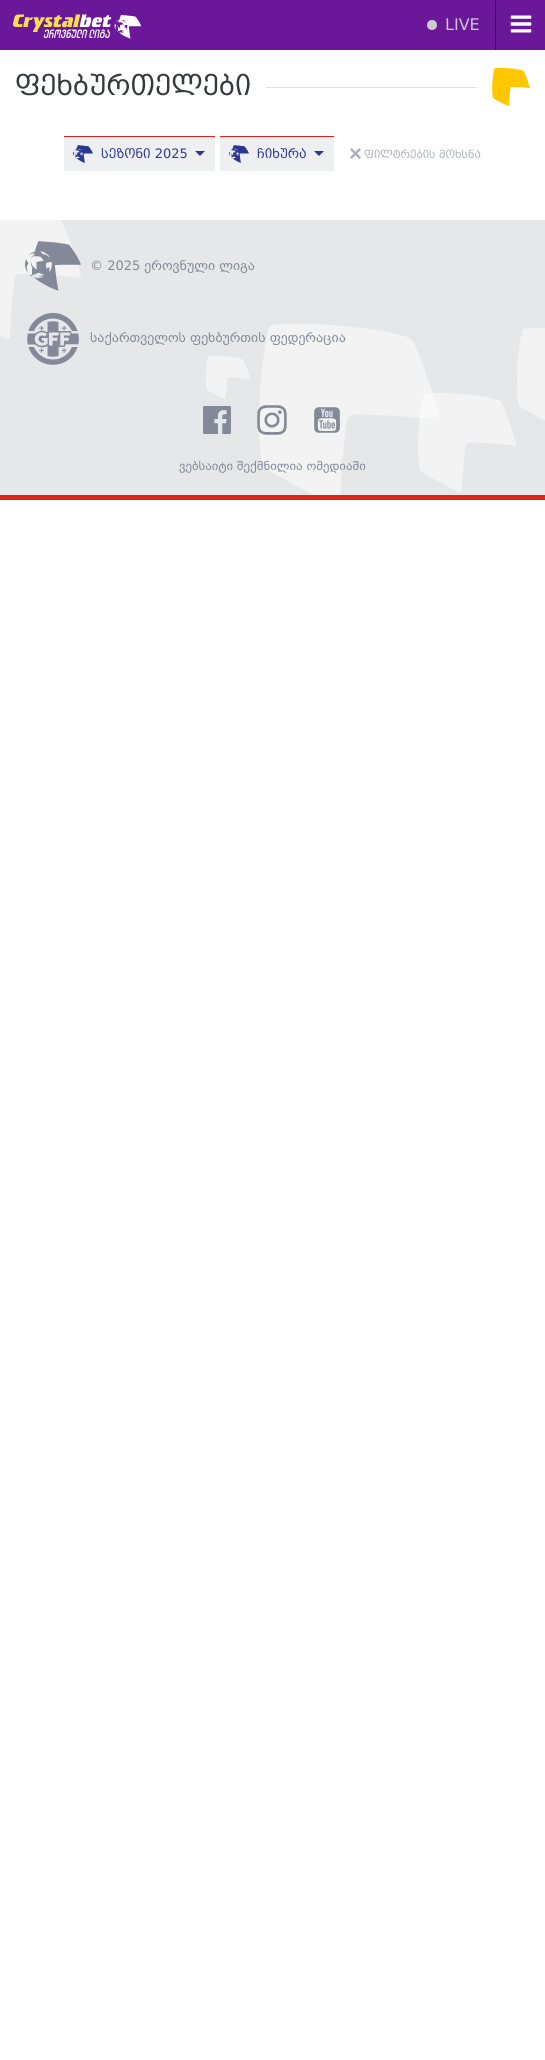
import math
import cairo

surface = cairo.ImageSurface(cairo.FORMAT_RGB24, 545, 2060)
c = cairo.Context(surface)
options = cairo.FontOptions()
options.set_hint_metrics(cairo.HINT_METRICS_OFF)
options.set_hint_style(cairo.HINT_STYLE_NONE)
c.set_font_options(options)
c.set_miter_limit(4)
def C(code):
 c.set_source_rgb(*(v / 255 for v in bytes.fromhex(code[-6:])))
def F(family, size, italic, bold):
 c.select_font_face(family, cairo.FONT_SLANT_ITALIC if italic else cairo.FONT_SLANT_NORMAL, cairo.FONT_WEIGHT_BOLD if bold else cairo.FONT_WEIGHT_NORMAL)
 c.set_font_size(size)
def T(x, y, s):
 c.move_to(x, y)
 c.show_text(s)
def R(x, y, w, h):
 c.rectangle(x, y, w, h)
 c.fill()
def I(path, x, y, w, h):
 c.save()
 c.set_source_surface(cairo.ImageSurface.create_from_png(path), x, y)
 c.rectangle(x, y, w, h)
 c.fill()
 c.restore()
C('ffffff')
c.paint()
C('6a179a')
R(0,0,545,50)
I('1.png',13,14,129,25)
C('c9cbd2')
c.arc(432,25,5,0,2 * math.pi)
c.fill()
F('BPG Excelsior',16,0,0)
T(445,30,'LIVE')
C('3c0e57')
R(495,0,1,50)
I('2.png',510,15,22,18)
F('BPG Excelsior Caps',28,0,0)
C('35383c')
T(15,95,'ფეხბურთელები')
C('dee4ea')
R(266,87,211,1)
I('3.png',492,68,38,38)
C('eeeff1')
R(64,137,151,34)
C('e2231a')
R(64,136,151,1)
I('4.png',73,145,20,18)
F('BPG Excelsior Caps',13,0,0)
C('2b388f')
T(101,158,'სეზონი 2025')
c.new_path()
c.move_to(195,151)
c.line_to(205,151)
c.line_to(200,156)
c.close_path()
c.fill()
C('eeeff1')
R(220,137,114,34)
C('e2231a')
R(220,136,114,1)
I('4.png',229,145,20,18)
C('2b388f')
T(257,158,'ჩიხურა')
c.new_path()
c.move_to(314,151)
c.line_to(324,151)
c.line_to(319,156)
c.close_path()
c.fill()
I('5.png',350,148,11,11)
F('BPG Excelsior Caps',11,0,0)
C('a9b1be')
T(364,158,'ფილტრების მოხსნა')
C('e6e7e9')
R(0,220,545,275)
C('e2231a')
R(0,495,545,5)
I('6.png',0,220,81,119)
I('7.png',25,241,56,50)
F('BPG Excelsior',13,0,0)
C('838998')
T(90,270,'© 2025 ეროვნული ლიგა')
I('8.png',27,313,52,52)
I('12.png',206,324,339,171)
T(90,342,'საქართველოს ფეხბურთის ფედერაცია')
I('9.png',203,406,28,28)
I('10.png',257,405,30,30)
I('11.png',314,407,26,26)
F('BPG Excelsior',12,0,0)
T(179,470,'ვებსაიტი შექმნილია ომედიაში')
surface.write_to_png('o.png')
